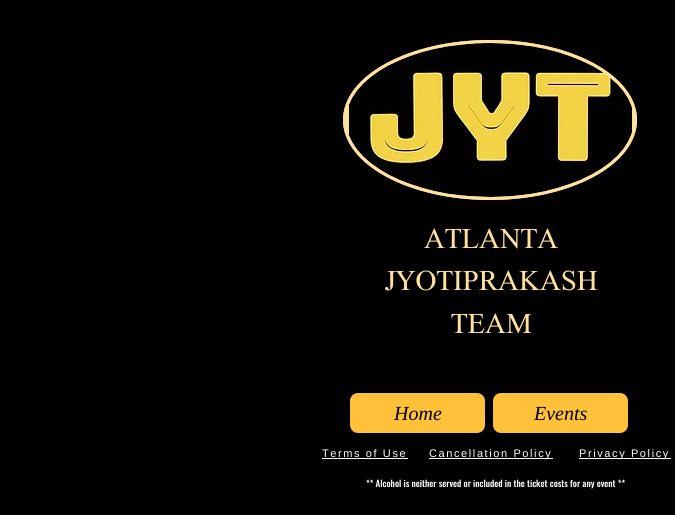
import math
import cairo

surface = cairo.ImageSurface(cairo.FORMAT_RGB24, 675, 515)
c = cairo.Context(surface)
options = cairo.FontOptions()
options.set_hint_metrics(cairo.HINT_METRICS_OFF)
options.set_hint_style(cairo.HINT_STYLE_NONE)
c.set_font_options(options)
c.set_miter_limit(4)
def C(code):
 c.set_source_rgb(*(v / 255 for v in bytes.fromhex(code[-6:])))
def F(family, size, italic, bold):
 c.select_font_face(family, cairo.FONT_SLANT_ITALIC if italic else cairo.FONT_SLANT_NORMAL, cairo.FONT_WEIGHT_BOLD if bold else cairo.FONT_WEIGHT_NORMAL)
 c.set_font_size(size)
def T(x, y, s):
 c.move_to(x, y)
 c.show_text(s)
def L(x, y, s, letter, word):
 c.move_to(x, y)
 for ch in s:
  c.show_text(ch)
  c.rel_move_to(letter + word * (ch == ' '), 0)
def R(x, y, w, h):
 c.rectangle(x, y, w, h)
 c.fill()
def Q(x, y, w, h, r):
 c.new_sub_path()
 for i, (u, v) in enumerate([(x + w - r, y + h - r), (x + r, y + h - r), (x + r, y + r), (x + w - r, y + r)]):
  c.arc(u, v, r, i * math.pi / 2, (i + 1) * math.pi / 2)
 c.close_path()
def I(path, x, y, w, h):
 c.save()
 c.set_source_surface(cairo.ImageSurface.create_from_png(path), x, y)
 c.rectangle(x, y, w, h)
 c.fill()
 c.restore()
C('000000')
c.paint()
C('ffe09d')
c.new_path()
c.move_to(490,40)
c.curve_to(571,40,637,76,637,120)
c.curve_to(637,164,571,200,490,200)
c.curve_to(409,200,343,164,343,120)
c.curve_to(343,76,409,40,490,40)
c.close_path()
c.fill()
c.new_path()
c.move_to(490,41.5)
c.curve_to(570.5,41.5,635.5,76.5,635.5,120)
c.curve_to(635.5,163.5,570.5,198.5,490,198.5)
c.curve_to(409.5,198.5,344.5,163.5,344.5,120)
c.curve_to(344.5,76.5,409.5,41.5,490,41.5)
c.close_path()
c.set_line_width(3)
c.stroke()
I('1.png',349,43,283,154)
F('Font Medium',28,0,0)
T(424,248,'ATLANTA')
T(385,290,'JYOTIPRAKASH')
T(451,333,'TEAM')
C('ffc03a')
Q(350,393,135,40,8)
c.fill()
F('Liberation Serif',20,1,0)
C('000000')
T(394,420,'Home')
C('ffc03a')
Q(493,393,135,40,8)
c.fill()
C('000000')
T(534,420,'Events')
F('Liberation Sans',11,0,0)
C('ffffff')
L(322,457,'Terms of Use',1.6,0)
R(322,458,86,1)
R(429,458,124,1)
L(429,457,'Cancellation Policy',1.6,0)
R(579,458,92,1)
L(579,457,'Privacy Policy',1.6,0)
F('Oswald Medium',9,0,0)
T(366,487,'** Alcohol is neither served or included in the ticket costs for any event **')
surface.write_to_png('o.png')
